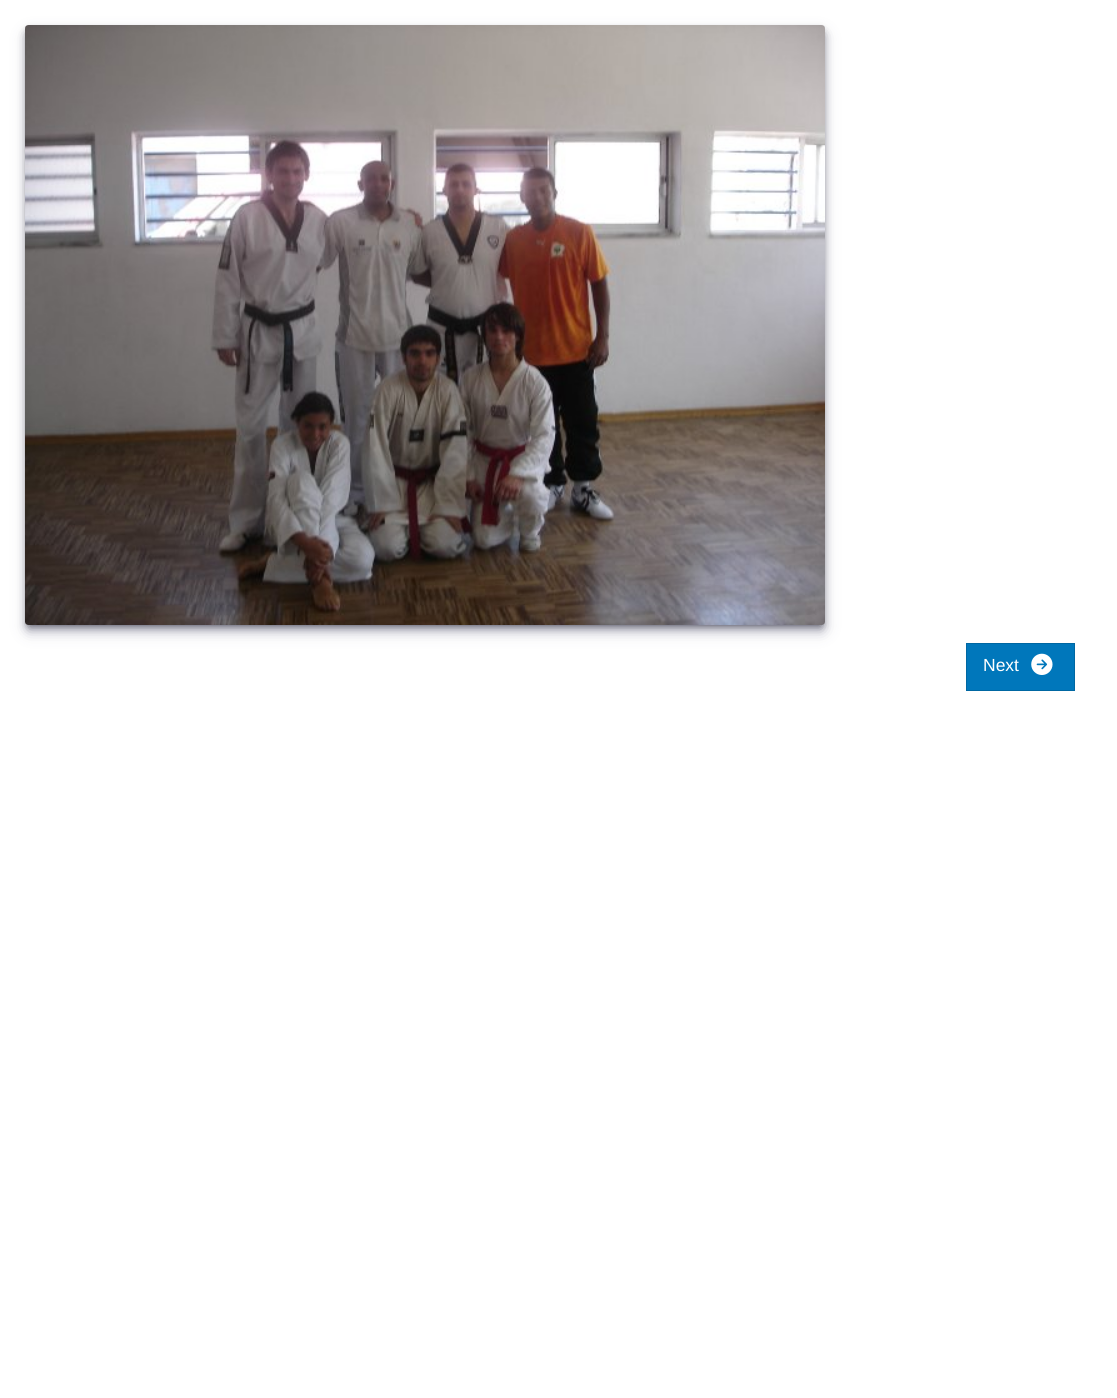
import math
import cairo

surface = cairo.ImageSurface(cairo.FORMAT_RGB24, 1117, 1398)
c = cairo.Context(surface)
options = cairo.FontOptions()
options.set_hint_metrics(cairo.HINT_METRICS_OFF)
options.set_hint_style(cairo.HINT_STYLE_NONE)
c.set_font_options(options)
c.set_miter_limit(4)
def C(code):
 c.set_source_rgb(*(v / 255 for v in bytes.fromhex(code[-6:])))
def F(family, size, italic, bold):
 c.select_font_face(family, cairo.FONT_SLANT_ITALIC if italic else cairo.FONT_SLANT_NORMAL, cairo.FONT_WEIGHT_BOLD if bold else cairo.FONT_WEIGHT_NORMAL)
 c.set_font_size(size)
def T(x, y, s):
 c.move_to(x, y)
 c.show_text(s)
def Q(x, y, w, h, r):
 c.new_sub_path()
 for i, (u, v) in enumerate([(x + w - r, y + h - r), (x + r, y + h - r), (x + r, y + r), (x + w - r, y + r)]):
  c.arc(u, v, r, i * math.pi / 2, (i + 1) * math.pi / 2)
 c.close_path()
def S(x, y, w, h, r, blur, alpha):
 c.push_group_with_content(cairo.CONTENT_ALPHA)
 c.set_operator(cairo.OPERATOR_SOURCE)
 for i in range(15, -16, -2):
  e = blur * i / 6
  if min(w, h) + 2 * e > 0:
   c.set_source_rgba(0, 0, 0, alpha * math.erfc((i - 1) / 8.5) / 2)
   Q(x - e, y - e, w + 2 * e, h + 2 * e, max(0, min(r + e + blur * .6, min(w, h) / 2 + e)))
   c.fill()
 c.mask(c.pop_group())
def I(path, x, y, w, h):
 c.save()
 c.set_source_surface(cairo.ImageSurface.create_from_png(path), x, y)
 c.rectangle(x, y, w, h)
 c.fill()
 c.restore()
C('ffffff')
c.paint()
C('000000')
S(29,33,792,592,0,4.5,.7)
C('32325d')
S(28,35,795,595,1,7.5,.4)
I('1.png',25,25,800,600)
C('0077bb')
c.rectangle(966.5,643.5,108,47)
c.fill_preserve()
C('0067a2')
c.set_line_width(1)
c.stroke()
F('Liberation Sans',17.5,0,0)
C('ffffff')
T(983,671,'Next')
I('2.png',1031,653,22,22)
surface.write_to_png('o.png')
